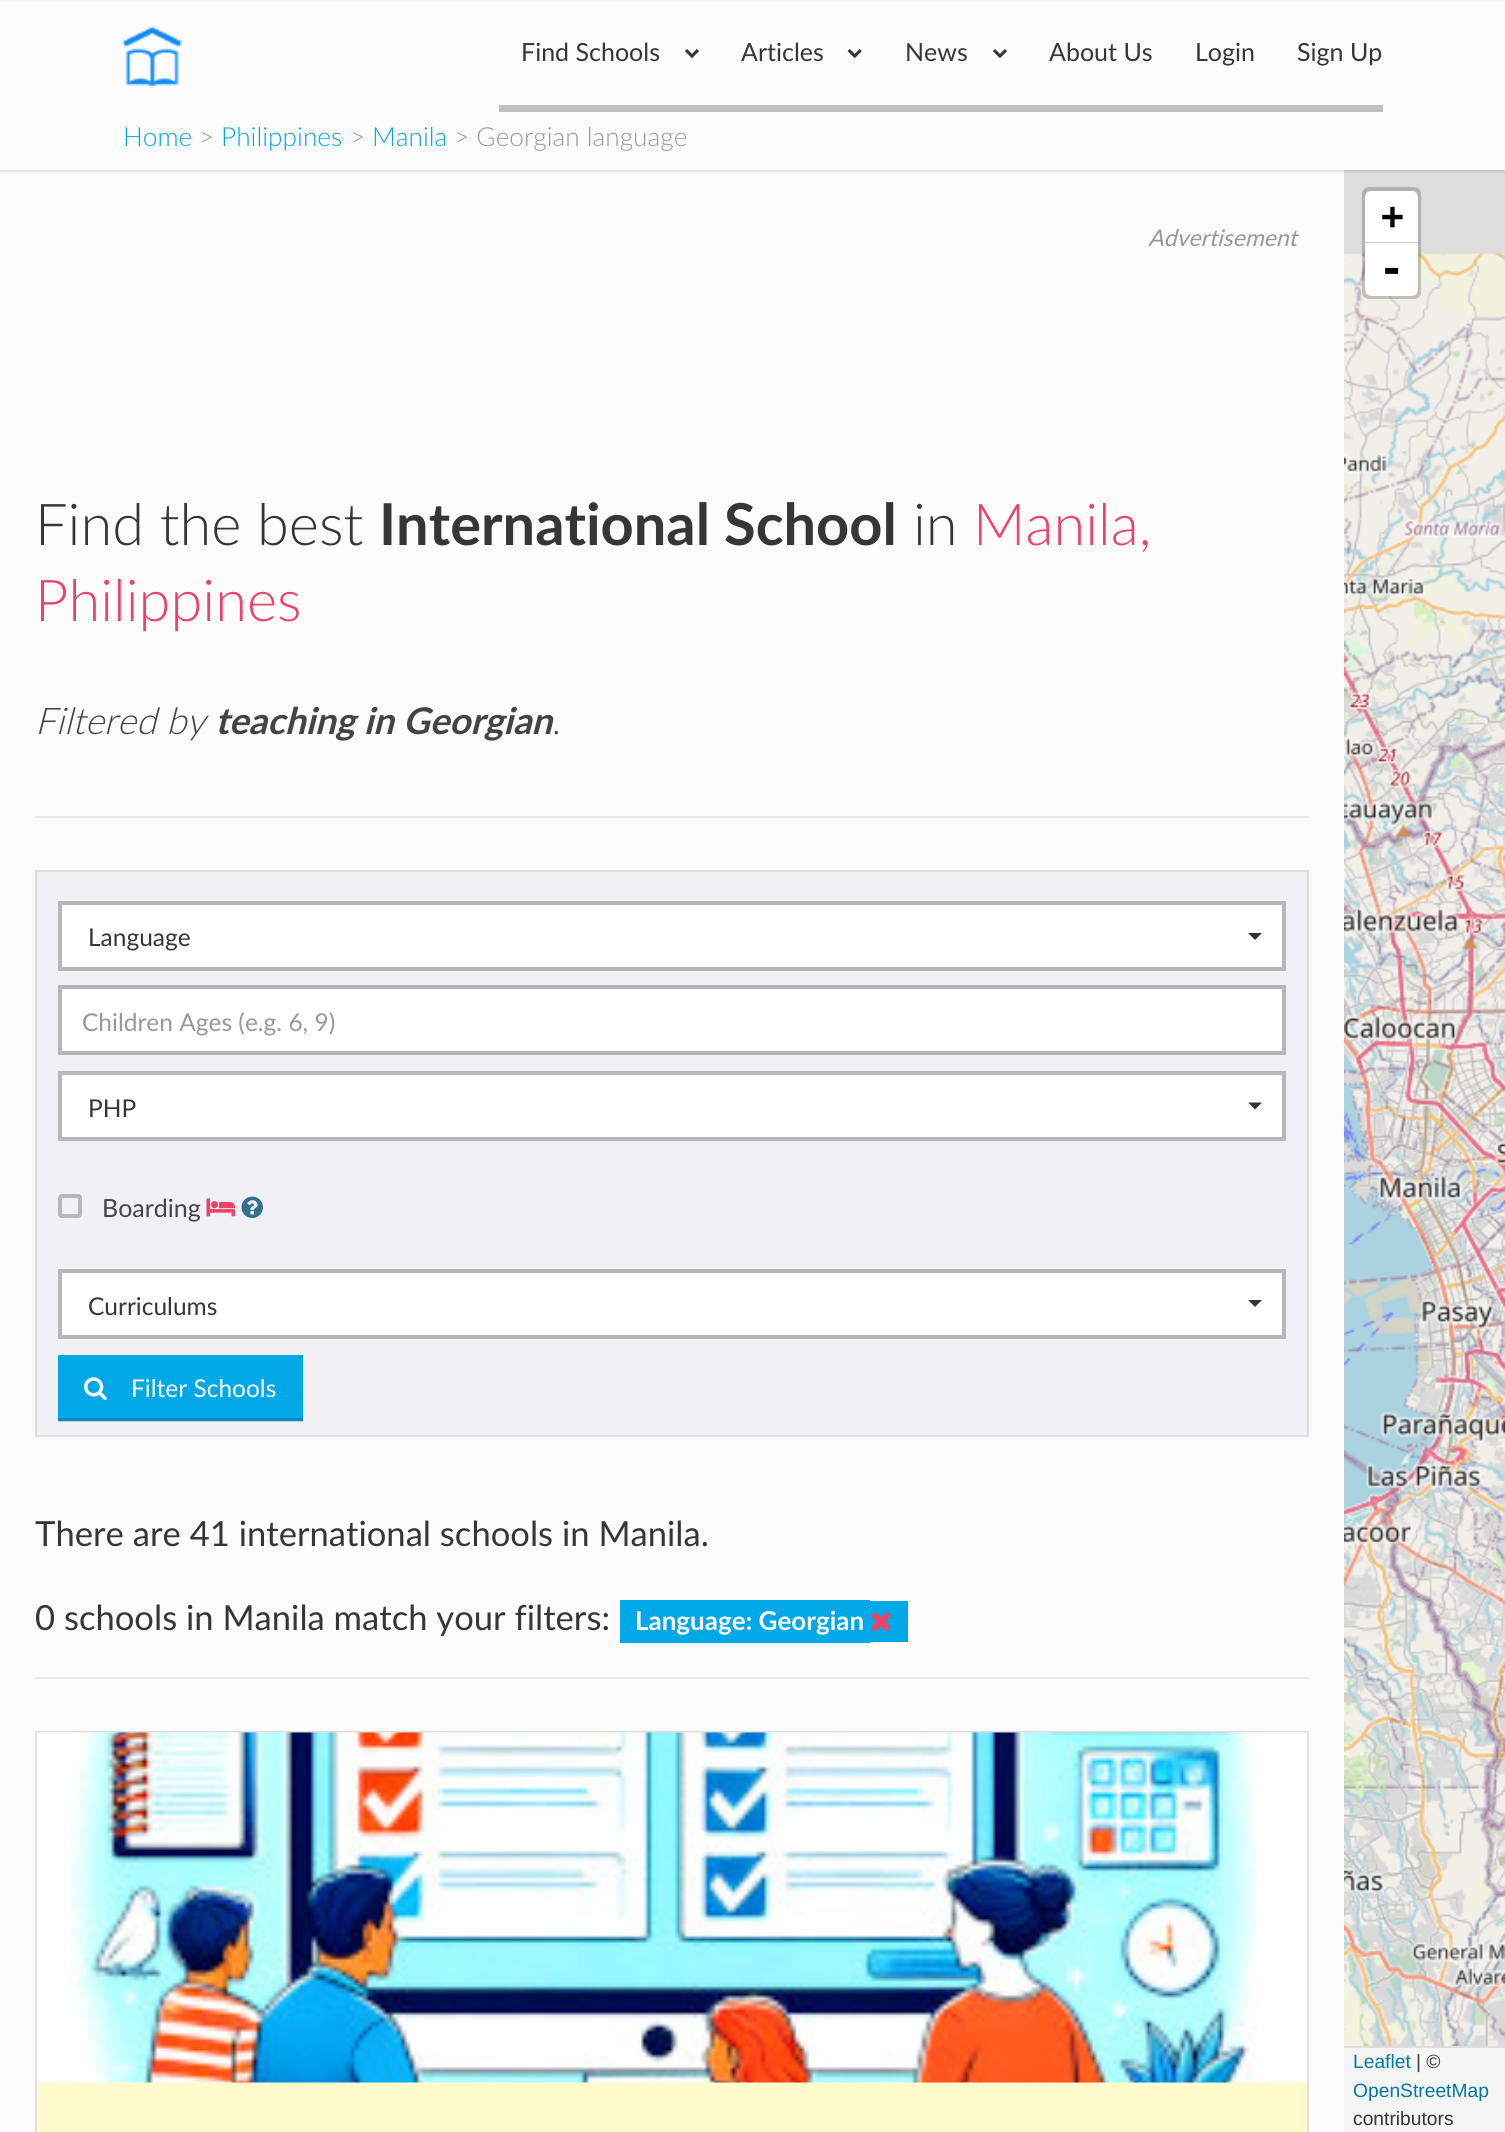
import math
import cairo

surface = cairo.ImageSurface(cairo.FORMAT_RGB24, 1505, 2132)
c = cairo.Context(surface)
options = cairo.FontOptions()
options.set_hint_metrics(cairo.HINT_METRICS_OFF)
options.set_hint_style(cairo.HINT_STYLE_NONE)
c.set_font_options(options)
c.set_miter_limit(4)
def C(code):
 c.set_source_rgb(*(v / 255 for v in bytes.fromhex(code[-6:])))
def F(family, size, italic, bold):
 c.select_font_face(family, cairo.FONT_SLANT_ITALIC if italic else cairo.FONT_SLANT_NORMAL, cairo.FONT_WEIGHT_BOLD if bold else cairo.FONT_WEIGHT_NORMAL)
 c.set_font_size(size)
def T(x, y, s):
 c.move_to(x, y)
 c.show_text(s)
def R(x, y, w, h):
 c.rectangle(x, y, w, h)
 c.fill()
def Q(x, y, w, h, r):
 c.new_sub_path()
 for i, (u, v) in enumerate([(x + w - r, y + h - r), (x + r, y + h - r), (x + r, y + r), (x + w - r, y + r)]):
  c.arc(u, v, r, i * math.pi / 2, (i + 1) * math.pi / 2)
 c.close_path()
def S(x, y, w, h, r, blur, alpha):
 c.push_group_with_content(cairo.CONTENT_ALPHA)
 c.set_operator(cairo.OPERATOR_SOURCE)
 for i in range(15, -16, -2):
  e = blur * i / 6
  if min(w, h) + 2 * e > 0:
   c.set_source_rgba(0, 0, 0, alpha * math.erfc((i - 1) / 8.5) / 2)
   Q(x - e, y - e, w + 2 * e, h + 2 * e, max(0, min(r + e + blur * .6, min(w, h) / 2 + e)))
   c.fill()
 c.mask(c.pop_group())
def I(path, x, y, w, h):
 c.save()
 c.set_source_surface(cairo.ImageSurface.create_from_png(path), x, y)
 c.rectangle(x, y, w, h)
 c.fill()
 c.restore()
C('fdfcfc')
c.paint()
C('dddddd')
R(1344,170,161,1878)
C('000000')
S(0,2,1505,170,0,1,.1)
C('fdfcfc')
R(0,1,1505,169)
I('1.png',122,26,60,60)
C('c0c0c0')
R(499,105,884,7)
F('Lato',25,0,0)
C('363636')
T(521,61,'Find Schools')
I('2.png',685,49,14,9)
T(741,61,'Articles')
I('3.png',847,49,15,9)
T(905,61,'News')
I('2.png',993,49,14,9)
T(1049,61,'About Us')
T(1195,61,'Login')
T(1297,61,'Sign Up')
F('Lato Light',26.25,0,0)
C('00a8e8')
T(123,146,'Home')
C('97989a')
T(199,146,'>')
C('00a8e8')
T(221,146,'Philippines')
C('97989a')
T(350,146,'>')
C('00a8e8')
T(372,146,'Manila')
C('97989a')
T(454,146,'> Georgian language')
F('Lato',23,1,0)
T(1148,246,'Advertisement')
C('e9e9e9')
R(35,816,1274,2)
F('Lato Light',57.75,0,0)
C('363636')
T(35,545,'Find the best')
F('Lato',57.75,0,1)
T(379,545,'International School')
F('Lato Light',57.75,0,0)
T(913,545,'in')
C('ee4266')
T(973,545,'Manila,')
T(35,621,'Philippines')
F('Lato Light',36.75,1,0)
C('444444')
T(35,734,'Filtered by')
F('Lato',36.75,1,1)
T(215,734,'teaching in Georgian')
F('Lato Light',36.75,0,0)
T(552,734,'.')
C('f1f1f5')
R(37,872,1270,563)
C('cdcdd0')
R(58,1421,245,1)
c.rectangle(36,871,1272,565)
C('dfdddd')
c.stroke()
C('ffffff')
c.rectangle(60,903,1224,66)
c.fill_preserve()
C('b6b7b8')
c.set_line_width(4)
c.stroke()
F('Lato',24.5,0,0)
C('363636')
T(88,946,'Language')
C('333333')
c.new_path()
c.move_to(1248,933)
c.line_to(1262,933)
c.line_to(1255,940)
c.close_path()
c.fill()
C('ffffff')
c.rectangle(60,987,1224,66)
c.fill_preserve()
C('b6b7b8')
c.stroke()
C('97989a')
T(82,1031,'Children Ages (e.g. 6, 9)')
C('ffffff')
c.rectangle(60,1073,1224,66)
c.fill_preserve()
C('b6b7b8')
c.stroke()
C('363636')
T(88,1117,'PHP')
C('333333')
c.new_path()
c.move_to(1248,1102.5)
c.line_to(1262,1102.5)
c.line_to(1255,1109.5)
c.close_path()
c.fill()
Q(60,1196,20,20,2)
C('b6b7b8')
c.stroke()
F('Lato',25,0,0)
C('444444')
T(102,1217,'Boarding')
I('4.png',206,1198,30,19)
I('5.png',241,1196,22,22)
C('ffffff')
c.rectangle(60,1271,1224,66)
c.fill_preserve()
C('b6b7b8')
c.stroke()
F('Lato',24.5,0,0)
C('363636')
T(88,1315,'Curriculums')
C('333333')
c.new_path()
c.move_to(1248,1300)
c.line_to(1262,1300)
c.line_to(1255,1307)
c.close_path()
c.fill()
C('00a8e8')
R(58,1355,245,63)
C('008fc5')
R(58,1418,245,3)
I('6.png',84,1377,23,23)
C('ffffff')
T(131,1397,'Filter Schools')
C('e9e9e9')
R(35,1677,1274,2)
F('Lato',34.6,0,0)
C('363636')
T(35,1546,'There are 41 international schools in Manila.')
T(35,1630,'0 schools in Manila match your filters:')
C('00a8e8')
R(620,1600,250,43)
R(870,1601,38,41)
F('Lato',26,0,1)
C('ffffff')
T(635,1630,'Language: Georgian')
I('7.png',871,1612,20,20)
C('fffbcc')
R(37,2082,1270,50)
c.rectangle(36,1732,1272,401)
C('dfdddd')
c.set_line_width(2)
c.stroke()
I('8.png',36,1732,1272,351)
I('9.png',1344,253,161,449)
Q(1364,189,55,108,5)
c.set_source_rgba(0,0,0,0.2)
c.set_line_width(4)
c.stroke()
C('ffffff')
c.new_path()
c.move_to(1372,191)
c.line_to(1411,191)
c.curve_to(1415,191,1418,194,1418,198)
c.line_to(1418,243)
c.line_to(1365,243)
c.line_to(1365,198)
c.curve_to(1365,194,1368,191,1372,191)
c.close_path()
c.fill()
C('cccccc')
R(1365,242,53,1)
F('DejaVu Sans Mono',38,0,1)
C('000000')
T(1381,229,'+')
C('ffffff')
c.new_path()
c.move_to(1365,243)
c.line_to(1418,243)
c.line_to(1418,289)
c.curve_to(1418,293,1415,296,1411,296)
c.line_to(1372,296)
c.curve_to(1368,296,1365,293,1365,289)
c.close_path()
c.fill()
F('DejaVu Sans Mono',42,0,1)
C('000000')
T(1379,283,'-')
C('f5f5f5')
R(1344,2048,161,84)
F('Liberation Sans',19.25,0,0)
C('0078a8')
T(1353,2068,'Leaflet')
C('363636')
T(1416,2068,'| ©')
C('0078a8')
T(1353,2097,'OpenStreetMap')
C('363636')
T(1353,2125,'contributors')
I('10.png',1344,702,161,448)
I('11.png',1344,1149,161,449)
I('12.png',1344,1597,161,449)
surface.write_to_png('o.png')
